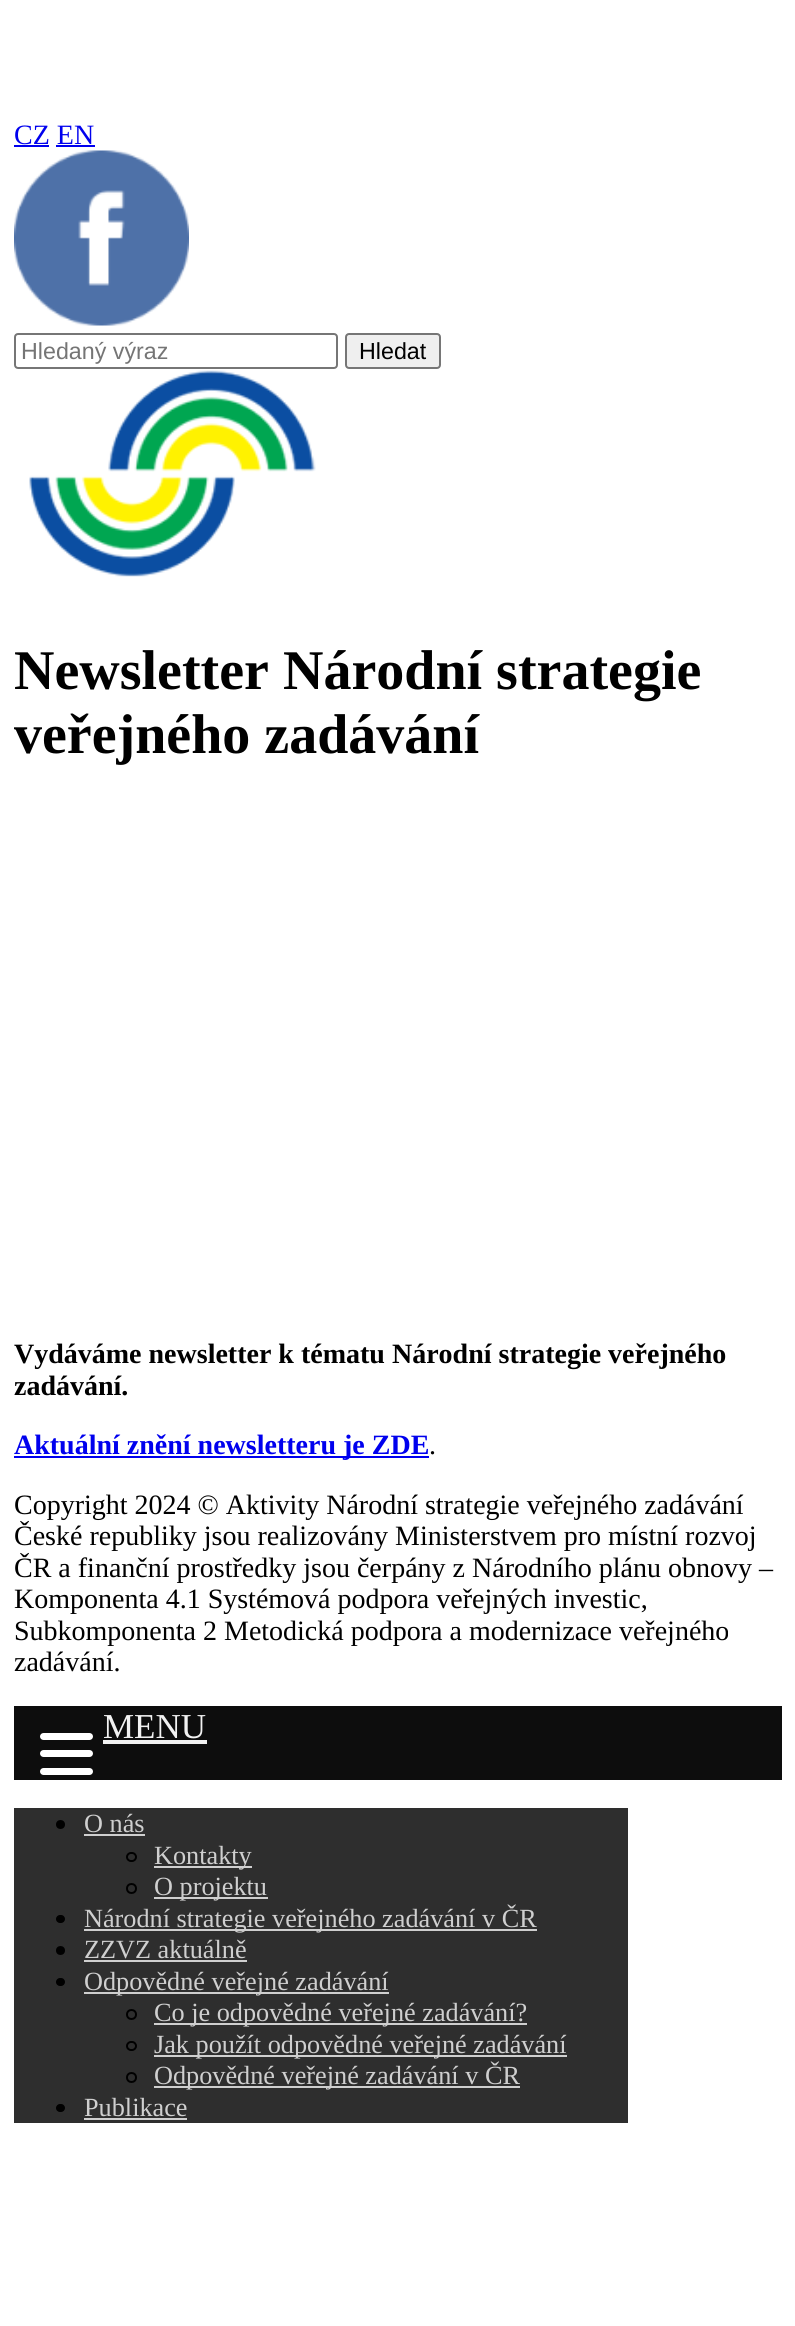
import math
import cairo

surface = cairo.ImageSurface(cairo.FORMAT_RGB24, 795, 2326)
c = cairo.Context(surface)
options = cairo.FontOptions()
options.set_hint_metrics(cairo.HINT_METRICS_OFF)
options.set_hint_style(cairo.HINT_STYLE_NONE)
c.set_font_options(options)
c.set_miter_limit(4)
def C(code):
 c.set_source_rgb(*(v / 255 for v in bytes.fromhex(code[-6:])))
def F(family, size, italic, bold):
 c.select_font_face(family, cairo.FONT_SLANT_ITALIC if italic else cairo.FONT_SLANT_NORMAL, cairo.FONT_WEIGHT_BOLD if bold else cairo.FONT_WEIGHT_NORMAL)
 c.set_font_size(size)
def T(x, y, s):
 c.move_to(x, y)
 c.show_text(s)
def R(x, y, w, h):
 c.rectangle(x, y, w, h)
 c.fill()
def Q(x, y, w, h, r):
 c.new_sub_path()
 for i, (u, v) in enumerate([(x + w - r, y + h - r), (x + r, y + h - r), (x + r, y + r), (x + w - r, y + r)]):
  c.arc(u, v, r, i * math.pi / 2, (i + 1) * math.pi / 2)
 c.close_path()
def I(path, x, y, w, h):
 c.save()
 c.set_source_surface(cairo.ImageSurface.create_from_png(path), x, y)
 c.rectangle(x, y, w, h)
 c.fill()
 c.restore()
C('ffffff')
c.paint()
F('Liberation Serif',28,0,0)
C('0000ee')
T(14,144,'CZ EN')
R(14,145,35,2)
R(56,145,39,2)
I('1.png',14,150,175,176)
Q(15,334,322,34,3)
C('767676')
c.stroke()
F('Liberation Sans',23.25,0,0)
C('757575')
T(21,359,'Hledaný výraz')
C('efefef')
Q(346,334,94,34,3)
c.fill_preserve()
C('767676')
c.stroke()
C('000000')
T(359,359,'Hledat')
I('2.png',29,370,287,207)
F('Liberation Serif',56,0,1)
T(14,689,'Newsletter Národní strategie')
T(14,753,'veřejného zadávání')
F('Liberation Serif',28,0,1)
T(14,1363,'Vydáváme newsletter k tématu Národní strategie veřejného')
T(14,1395,'zadávání.')
C('0000ee')
R(14,1456,415,2)
T(14,1454,'Aktuální znění newsletteru je ZDE')
F('Liberation Serif',28,0,0)
C('000000')
T(429,1454,'.')
T(14,1514,'Copyright 2024 © Aktivity Národní strategie veřejného zadávání')
T(14,1545,'České republiky jsou realizovány Ministerstvem pro místní rozvoj')
T(14,1577,'ČR a finanční prostředky jsou čerpány z Národního plánu obnovy –')
T(14,1608,'Komponenta 4.1 Systémová podpora veřejných investic,')
T(14,1640,'Subkomponenta 2 Metodická podpora a modernizace veřejného')
T(14,1671,'zadávání.')
C('0d0d0d')
R(14,1706,768,74)
F('Liberation Serif',35,0,0)
C('f2f2f2')
T(103,1738,'MENU')
R(103,1740,104,4)
C('ffffff')
Q(40,1733,53,7,3.5)
c.fill()
Q(40,1750,53,7,3.5)
c.fill()
Q(40,1768,53,7,3.5)
c.fill()
C('2e2e2e')
R(14,1808,614,315)
C('000000')
c.arc(60.5,1824.5,4.5,0,2 * math.pi)
c.fill()
F('Liberation Serif',26.25,0,0)
C('cfcfcf')
T(84,1832,'O nás')
R(84,1834,61,2)
Q(127,1853,9,8,4)
C('000000')
c.stroke()
C('cfcfcf')
R(154,1866,98,2)
T(154,1864,'Kontakty')
c.new_path()
c.arc(131.5,1888.5,4.5,0,2 * math.pi)
C('000000')
c.stroke()
C('cfcfcf')
R(154,1897,114,2)
T(154,1895,'O projektu')
C('000000')
Q(56,1915,9,8,4)
c.fill()
C('cfcfcf')
R(84,1929,453,2)
T(84,1927,'Národní strategie veřejného zadávání v ČR')
C('000000')
c.new_path()
c.arc(60.5,1950.5,4.5,0,2 * math.pi)
c.fill()
C('cfcfcf')
T(84,1958,'ZZVZ aktuálně')
R(84,1960,163,2)
C('000000')
Q(56,1978,9,8,4)
c.fill()
C('cfcfcf')
R(84,1992,305,2)
T(84,1990,'Odpovědné veřejné zadávání')
c.new_path()
c.arc(131.5,2014.5,4.5,0,2 * math.pi)
C('000000')
c.stroke()
C('cfcfcf')
R(154,2023,373,2)
T(154,2021,'Co je odpovědné veřejné zadávání?')
Q(127,2042,9,8,4)
C('000000')
c.stroke()
C('cfcfcf')
R(154,2055,413,2)
T(154,2053,'Jak použít odpovědné veřejné zadávání')
c.new_path()
c.arc(131.5,2077.5,4.5,0,2 * math.pi)
C('000000')
c.stroke()
C('cfcfcf')
R(154,2086,366,2)
T(154,2084,'Odpovědné veřejné zadávání v ČR')
C('000000')
Q(56,2104,9,8,4)
c.fill()
C('cfcfcf')
T(84,2116,'Publikace')
R(84,2118,103,2)
surface.write_to_png('o.png')
